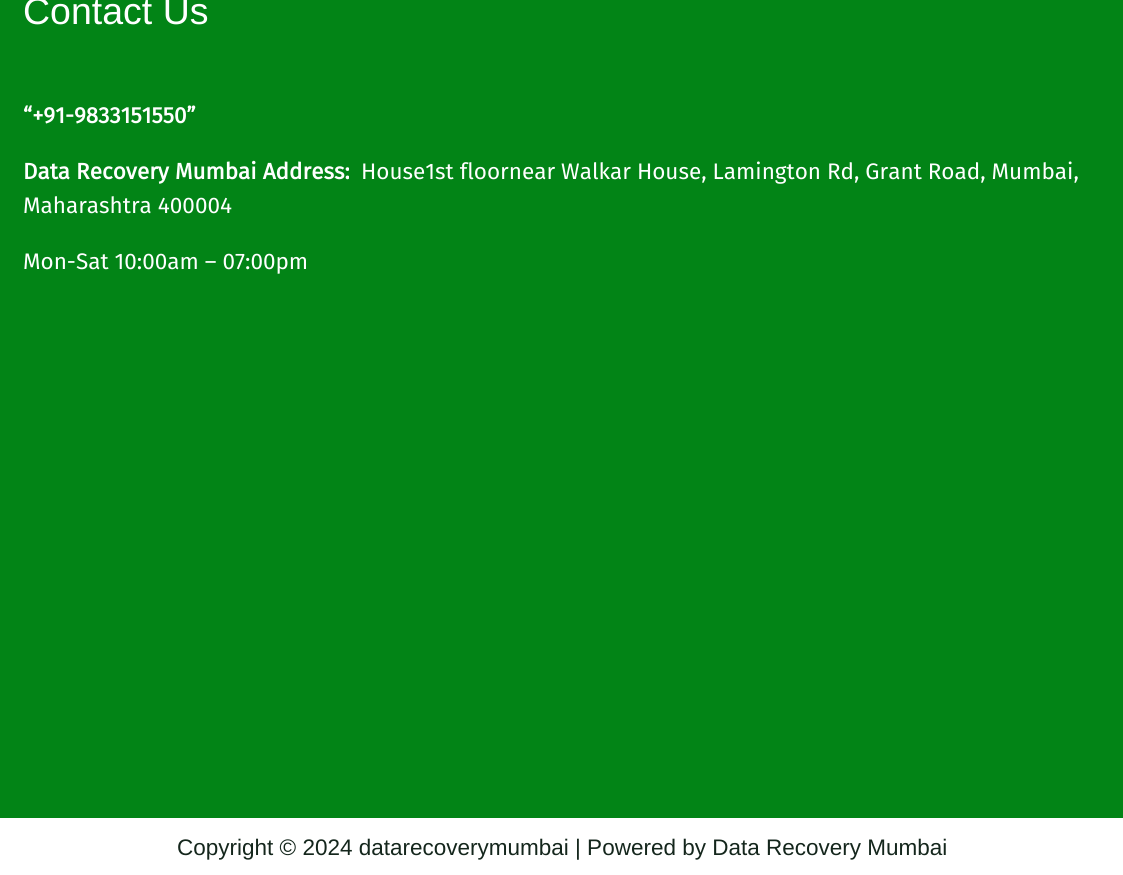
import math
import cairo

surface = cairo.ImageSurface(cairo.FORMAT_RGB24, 1123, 875)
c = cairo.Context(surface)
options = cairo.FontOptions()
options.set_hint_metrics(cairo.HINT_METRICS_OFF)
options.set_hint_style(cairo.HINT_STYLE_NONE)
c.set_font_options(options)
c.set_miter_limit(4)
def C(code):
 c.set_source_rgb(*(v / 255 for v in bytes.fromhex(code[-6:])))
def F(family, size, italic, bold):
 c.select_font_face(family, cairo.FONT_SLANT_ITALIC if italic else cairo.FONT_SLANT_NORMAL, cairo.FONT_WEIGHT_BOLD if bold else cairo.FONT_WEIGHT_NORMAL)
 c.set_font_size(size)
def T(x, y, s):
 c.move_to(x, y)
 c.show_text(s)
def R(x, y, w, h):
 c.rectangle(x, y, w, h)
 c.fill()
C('ffffff')
c.paint()
C('028416')
R(0,0,1123,818)
F('Liberation Sans',37.5,0,0)
C('ffffff')
T(23,24,'Contact Us')
F('Fira Sans',22.5,0,1)
T(23,123,'“+91-9833151550”')
T(23,179,'Data Recovery Mumbai Address:')
F('Fira Sans',22.5,0,0)
T(361,179,'House1st floornear Walkar House, Lamington Rd, Grant Road, Mumbai,')
T(23,213,'Maharashtra 400004')
T(23,269,'Mon-Sat 10:00am – 07:00pm')
F('Liberation Sans',22.5,0,0)
C('14261c')
T(177,855,'Copyright © 2024 datarecoverymumbai | Powered by Data Recovery Mumbai')
surface.write_to_png('o.png')
